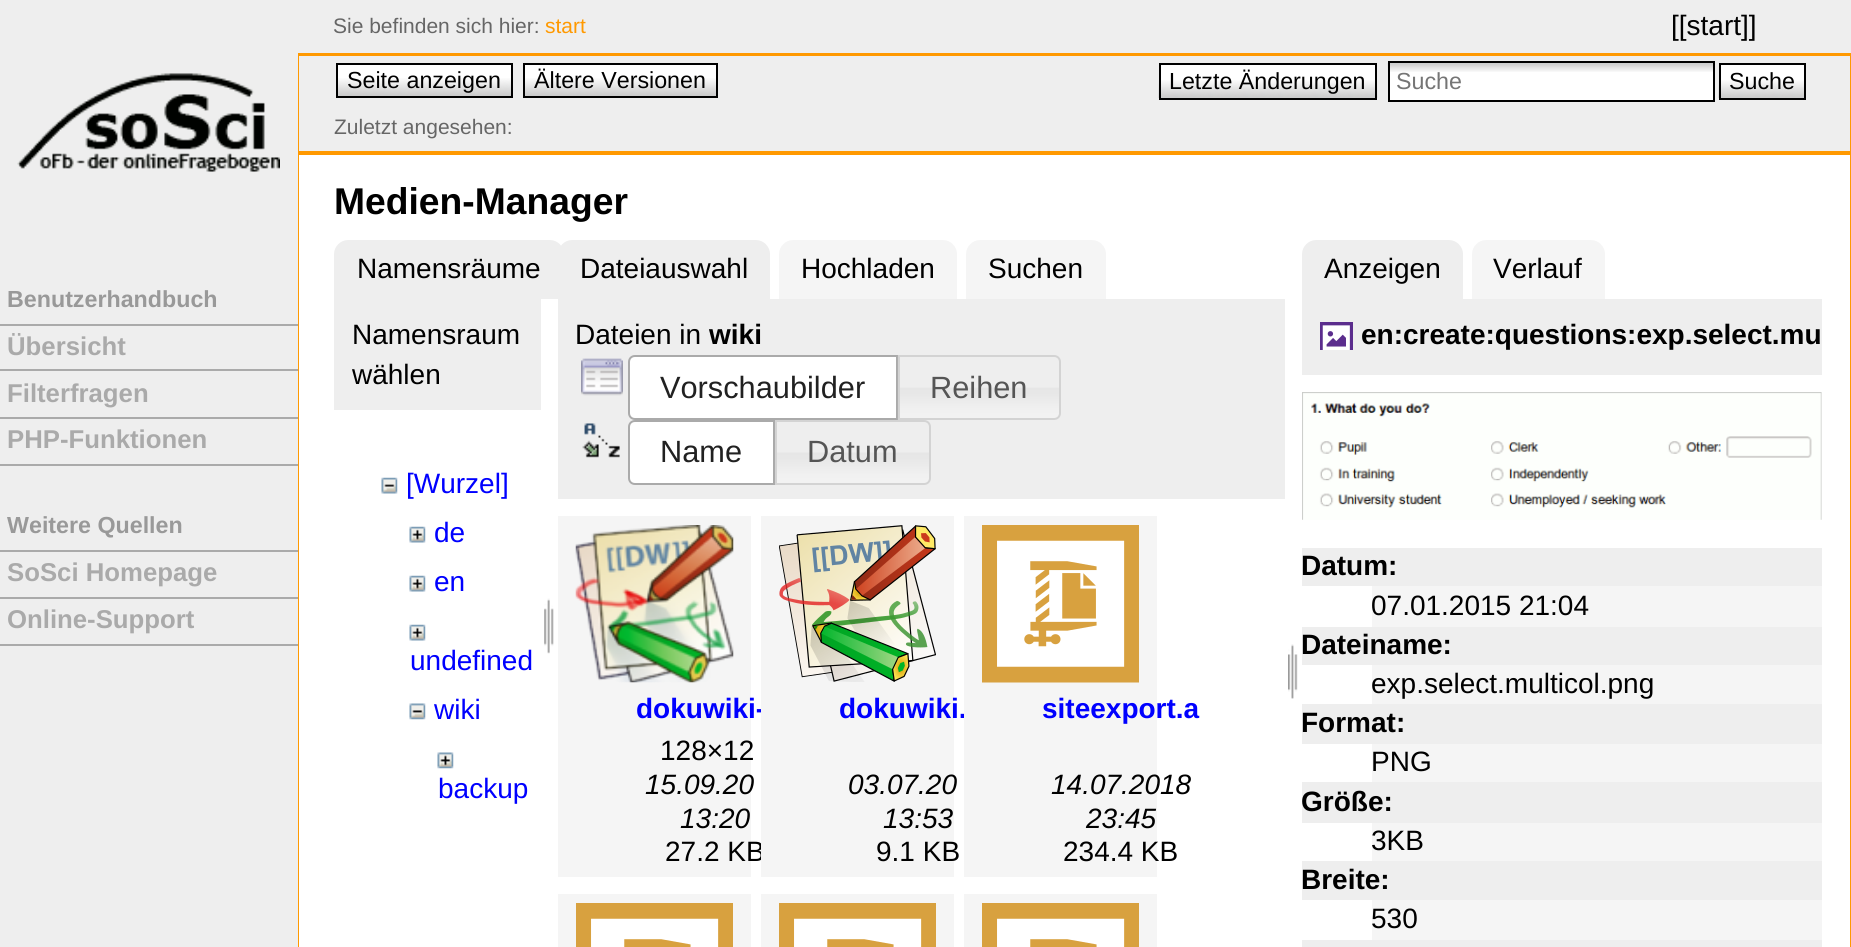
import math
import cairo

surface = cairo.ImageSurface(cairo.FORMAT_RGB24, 1851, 947)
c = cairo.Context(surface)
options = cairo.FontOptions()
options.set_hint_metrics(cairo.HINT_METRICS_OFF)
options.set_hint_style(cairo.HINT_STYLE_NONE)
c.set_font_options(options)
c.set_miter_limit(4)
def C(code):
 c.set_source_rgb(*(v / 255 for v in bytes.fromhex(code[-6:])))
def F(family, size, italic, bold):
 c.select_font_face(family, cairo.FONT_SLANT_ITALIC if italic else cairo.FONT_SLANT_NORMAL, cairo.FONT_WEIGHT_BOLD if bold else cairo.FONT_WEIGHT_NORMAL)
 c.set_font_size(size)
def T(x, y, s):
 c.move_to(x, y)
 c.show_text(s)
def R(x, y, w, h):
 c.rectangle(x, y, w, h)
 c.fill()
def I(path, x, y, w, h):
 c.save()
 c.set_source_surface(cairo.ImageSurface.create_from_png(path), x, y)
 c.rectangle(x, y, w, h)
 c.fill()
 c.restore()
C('eeeeee')
c.paint()
F('Liberation Sans',21,0,0)
C('666666')
T(333,33,'Sie befinden sich hier:')
C('ff9900')
T(545,33,'start')
F('Liberation Sans',28,0,0)
C('000000')
T(1671,35,'[[start]]')
I('1.png',17,73,263,99)
F('Liberation Sans',23.25,0,1)
C('999999')
T(7,307,'Benutzerhandbuch')
C('aaaaaa')
R(0,324,298,2)
R(0,369,298,2)
F('Liberation Sans',25.75,0,1)
T(7,355,'Übersicht')
R(0,417,298,2)
T(7,402,'Filterfragen')
R(0,464,298,2)
T(7,448,'PHP-Funktionen')
F('Liberation Sans',23.25,0,1)
C('999999')
T(7,533,'Weitere Quellen')
C('aaaaaa')
R(0,550,298,2)
R(0,597,298,2)
F('Liberation Sans',25.75,0,1)
T(7,581,'SoSci Homepage')
R(0,644,298,2)
T(7,628,'Online-Support')
C('ff9900')
R(298,53,1553,3)
R(1850,53,1,894)
R(298,53,2,894)
C('eeeeee')
R(299,56,1,95)
C('ffffff')
R(338,65,173,30)
I('2.png',338,78,173,18)
c.rectangle(337,64,175,33)
C('000000')
c.stroke()
F('Liberation Sans',23.25,0,0)
T(347,88,'Seite anzeigen')
C('ffffff')
R(525,65,191,30)
I('3.png',525,78,191,18)
c.rectangle(524,64,193,33)
C('000000')
c.stroke()
T(534,88,'Ältere Versionen')
C('ffffff')
R(1161,65,214,32)
I('4.png',1158,80,220,18)
c.rectangle(1160,64,216,35)
C('000000')
c.stroke()
T(1169,89,'Letzte Änderungen')
C('ffffff')
R(1390,63,323,37)
I('5.png',1387,63,326,9)
c.rectangle(1389,62,325,39)
C('000000')
c.stroke()
C('757575')
T(1396,89,'Suche')
C('ffffff')
R(1721,65,83,32)
I('6.png',1718,80,86,18)
c.rectangle(1720,64,85,35)
C('000000')
c.stroke()
T(1729,89,'Suche')
F('Liberation Sans',21,0,0)
C('666666')
T(334,134,'Zuletzt angesehen:')
C('ffffff')
R(299,155,1551,792)
C('ff9900')
R(299,151,1551,4)
F('Liberation Sans',37.25,0,1)
C('000000')
T(334,214,'Medien-Manager')
C('eeeeee')
c.new_path()
c.move_to(348,240)
c.line_to(550,240)
c.curve_to(557.5,240,564,246.5,564,254)
c.line_to(564,299)
c.line_to(334,299)
c.line_to(334,254)
c.curve_to(334,246.5,340.5,240,348,240)
c.close_path()
c.fill()
F('Liberation Sans',28,0,0)
C('000000')
T(357,278,'Namensräume')
C('eeeeee')
R(334,299,207,111)
C('000000')
T(352,344,'Namensraum')
T(352,384,'wählen')
I('7.png',381,477,17,17)
C('0000ff')
T(406,493,'[Wurzel]')
I('8.png',409,526,17,17)
T(434,542,'de')
I('8.png',409,575,17,17)
T(434,591,'en')
I('8.png',409,624,17,17)
T(410,670,'undefined')
I('9.png',409,703,17,17)
T(434,719,'wiki')
I('10.png',437,752,17,17)
T(438,798,'backup')
I('11.png',544,598,10,56)
C('eeeeee')
c.new_path()
c.move_to(572,240)
c.line_to(756,240)
c.curve_to(763.5,240,770,246.5,770,254)
c.line_to(770,299)
c.line_to(558,299)
c.line_to(558,254)
c.curve_to(558,246.5,564.5,240,572,240)
c.close_path()
c.fill()
C('000000')
T(580,278,'Dateiauswahl')
C('f5f5f5')
c.new_path()
c.move_to(793,240)
c.line_to(943,240)
c.curve_to(950.5,240,957,246.5,957,254)
c.line_to(957,299)
c.line_to(779,299)
c.line_to(779,254)
c.curve_to(779,246.5,785.5,240,793,240)
c.close_path()
c.fill()
C('000000')
T(801,278,'Hochladen')
C('f5f5f5')
c.new_path()
c.move_to(980,240)
c.line_to(1092,240)
c.curve_to(1099.5,240,1106,246.5,1106,254)
c.line_to(1106,299)
c.line_to(966,299)
c.line_to(966,254)
c.curve_to(966,246.5,972.5,240,980,240)
c.close_path()
c.fill()
C('000000')
T(988,278,'Suchen')
C('eeeeee')
R(558,299,727,200)
C('000000')
T(575,344,'Dateien in')
F('Liberation Sans',28,0,1)
T(709,344,'wiki')
I('12.png',581,358,42,38)
C('ffffff')
c.new_path()
c.move_to(635,356)
c.line_to(897,356)
c.line_to(897,419)
c.line_to(635,419)
c.curve_to(631.5,419,629,416.5,629,413)
c.line_to(629,362)
c.curve_to(629,358.5,631.5,356,635,356)
c.close_path()
c.fill_preserve()
C('aaaaaa')
c.stroke()
F('Liberation Sans',30.75,0,0)
C('212121')
T(660,398,'Vorschaubilder')
I('13.png',897,355,163,65)
c.new_path()
c.move_to(899,356)
c.line_to(1054,356)
c.curve_to(1057.5,356,1060,358.5,1060,362)
c.line_to(1060,413)
c.curve_to(1060,416.5,1057.5,419,1054,419)
c.line_to(899,419)
c.close_path()
C('d3d3d3')
c.stroke()
C('555555')
T(930,398,'Reihen')
I('14.png',582,423,38,35)
C('ffffff')
c.new_path()
c.move_to(635,421)
c.line_to(774,421)
c.line_to(774,484)
c.line_to(635,484)
c.curve_to(631.5,484,629,481.5,629,478)
c.line_to(629,427)
c.curve_to(629,423.5,631.5,421,635,421)
c.close_path()
c.fill_preserve()
C('aaaaaa')
c.stroke()
C('212121')
T(660,462,'Name')
I('15.png',777,420,154,65)
c.new_path()
c.move_to(776,421)
c.line_to(924,421)
c.curve_to(927.5,421,930,423.5,930,427)
c.line_to(930,478)
c.curve_to(930,481.5,927.5,484,924,484)
c.line_to(776,484)
c.close_path()
C('d3d3d3')
c.stroke()
C('555555')
T(807,462,'Datum')
I('16.png',1288,644,10,55)
C('f5f5f5')
R(558,516,193,361)
I('17.png',575,525,159,158)
F('Liberation Sans',28,0,1)
C('0000ff')
T(636,718,'dokuwiki-')
F('Liberation Sans',28,0,0)
C('000000')
T(660,760,'128×12')
F('Liberation Sans',28,1,0)
T(645,794,'15.09.20')
T(680,828,'13:20')
F('Liberation Sans',28,0,0)
T(665,861,'27.2 KB')
C('f5f5f5')
R(761,516,193,361)
I('18.png',779,525,157,157)
F('Liberation Sans',28,0,1)
C('0000ff')
T(839,718,'dokuwiki.')
F('Liberation Sans',28,1,0)
C('000000')
T(848,794,'03.07.20')
T(883,828,'13:53')
F('Liberation Sans',28,0,0)
T(876,861,'9.1 KB')
C('f5f5f5')
R(964,516,193,361)
I('19.png',982,525,157,158)
F('Liberation Sans',28,0,1)
C('0000ff')
T(1042,718,'siteexport.a')
F('Liberation Sans',28,1,0)
C('000000')
T(1051,794,'14.07.2018')
T(1086,828,'23:45')
F('Liberation Sans',28,0,0)
T(1063,861,'234.4 KB')
C('f5f5f5')
R(558,894,193,53)
I('20.png',576,903,157,44)
R(761,894,193,53)
I('20.png',779,903,157,44)
R(964,894,193,53)
I('20.png',982,903,157,44)
C('eeeeee')
c.new_path()
c.move_to(1316,240)
c.line_to(1449,240)
c.curve_to(1456.5,240,1463,246.5,1463,254)
c.line_to(1463,299)
c.line_to(1302,299)
c.line_to(1302,254)
c.curve_to(1302,246.5,1308.5,240,1316,240)
c.close_path()
c.fill()
C('000000')
T(1324,278,'Anzeigen')
C('f5f5f5')
c.new_path()
c.move_to(1486,240)
c.line_to(1591,240)
c.curve_to(1598.5,240,1605,246.5,1605,254)
c.line_to(1605,299)
c.line_to(1472,299)
c.line_to(1472,254)
c.curve_to(1472,246.5,1478.5,240,1486,240)
c.close_path()
c.fill()
C('000000')
T(1493,278,'Verlauf')
C('eeeeee')
R(1302,299,520,76)
I('21.png',1320,322,33,28)
F('Liberation Sans',28,0,1)
C('000000')
T(1361,344,'en:create:questions:exp.select.mu')
I('22.png',1302,392,520,128)
C('eeeeee')
R(1302,548,520,38)
C('000000')
T(1301,575,'Datum:')
C('f5f5f5')
R(1372,586,450,41)
F('Liberation Sans',28,0,0)
C('000000')
T(1371,615,'07.01.2015 21:04')
C('eeeeee')
R(1302,627,520,38)
F('Liberation Sans',28,0,1)
C('000000')
T(1301,654,'Dateiname:')
C('f5f5f5')
R(1372,665,450,39)
F('Liberation Sans',28,0,0)
C('000000')
T(1371,693,'exp.select.multicol.png')
C('eeeeee')
R(1302,704,520,40)
F('Liberation Sans',28,0,1)
C('000000')
T(1301,732,'Format:')
C('f5f5f5')
R(1372,744,450,38)
F('Liberation Sans',28,0,0)
C('000000')
T(1371,771,'PNG')
C('eeeeee')
R(1302,782,520,41)
F('Liberation Sans',28,0,1)
C('000000')
T(1301,811,'Größe:')
C('f5f5f5')
R(1372,823,450,38)
F('Liberation Sans',28,0,0)
C('000000')
T(1371,850,'3KB')
C('eeeeee')
R(1302,861,520,39)
F('Liberation Sans',28,0,1)
C('000000')
T(1301,889,'Breite:')
C('f5f5f5')
R(1372,900,450,40)
F('Liberation Sans',28,0,0)
C('000000')
T(1371,928,'530')
C('eeeeee')
R(1302,940,520,7)
surface.write_to_png('o.png')
